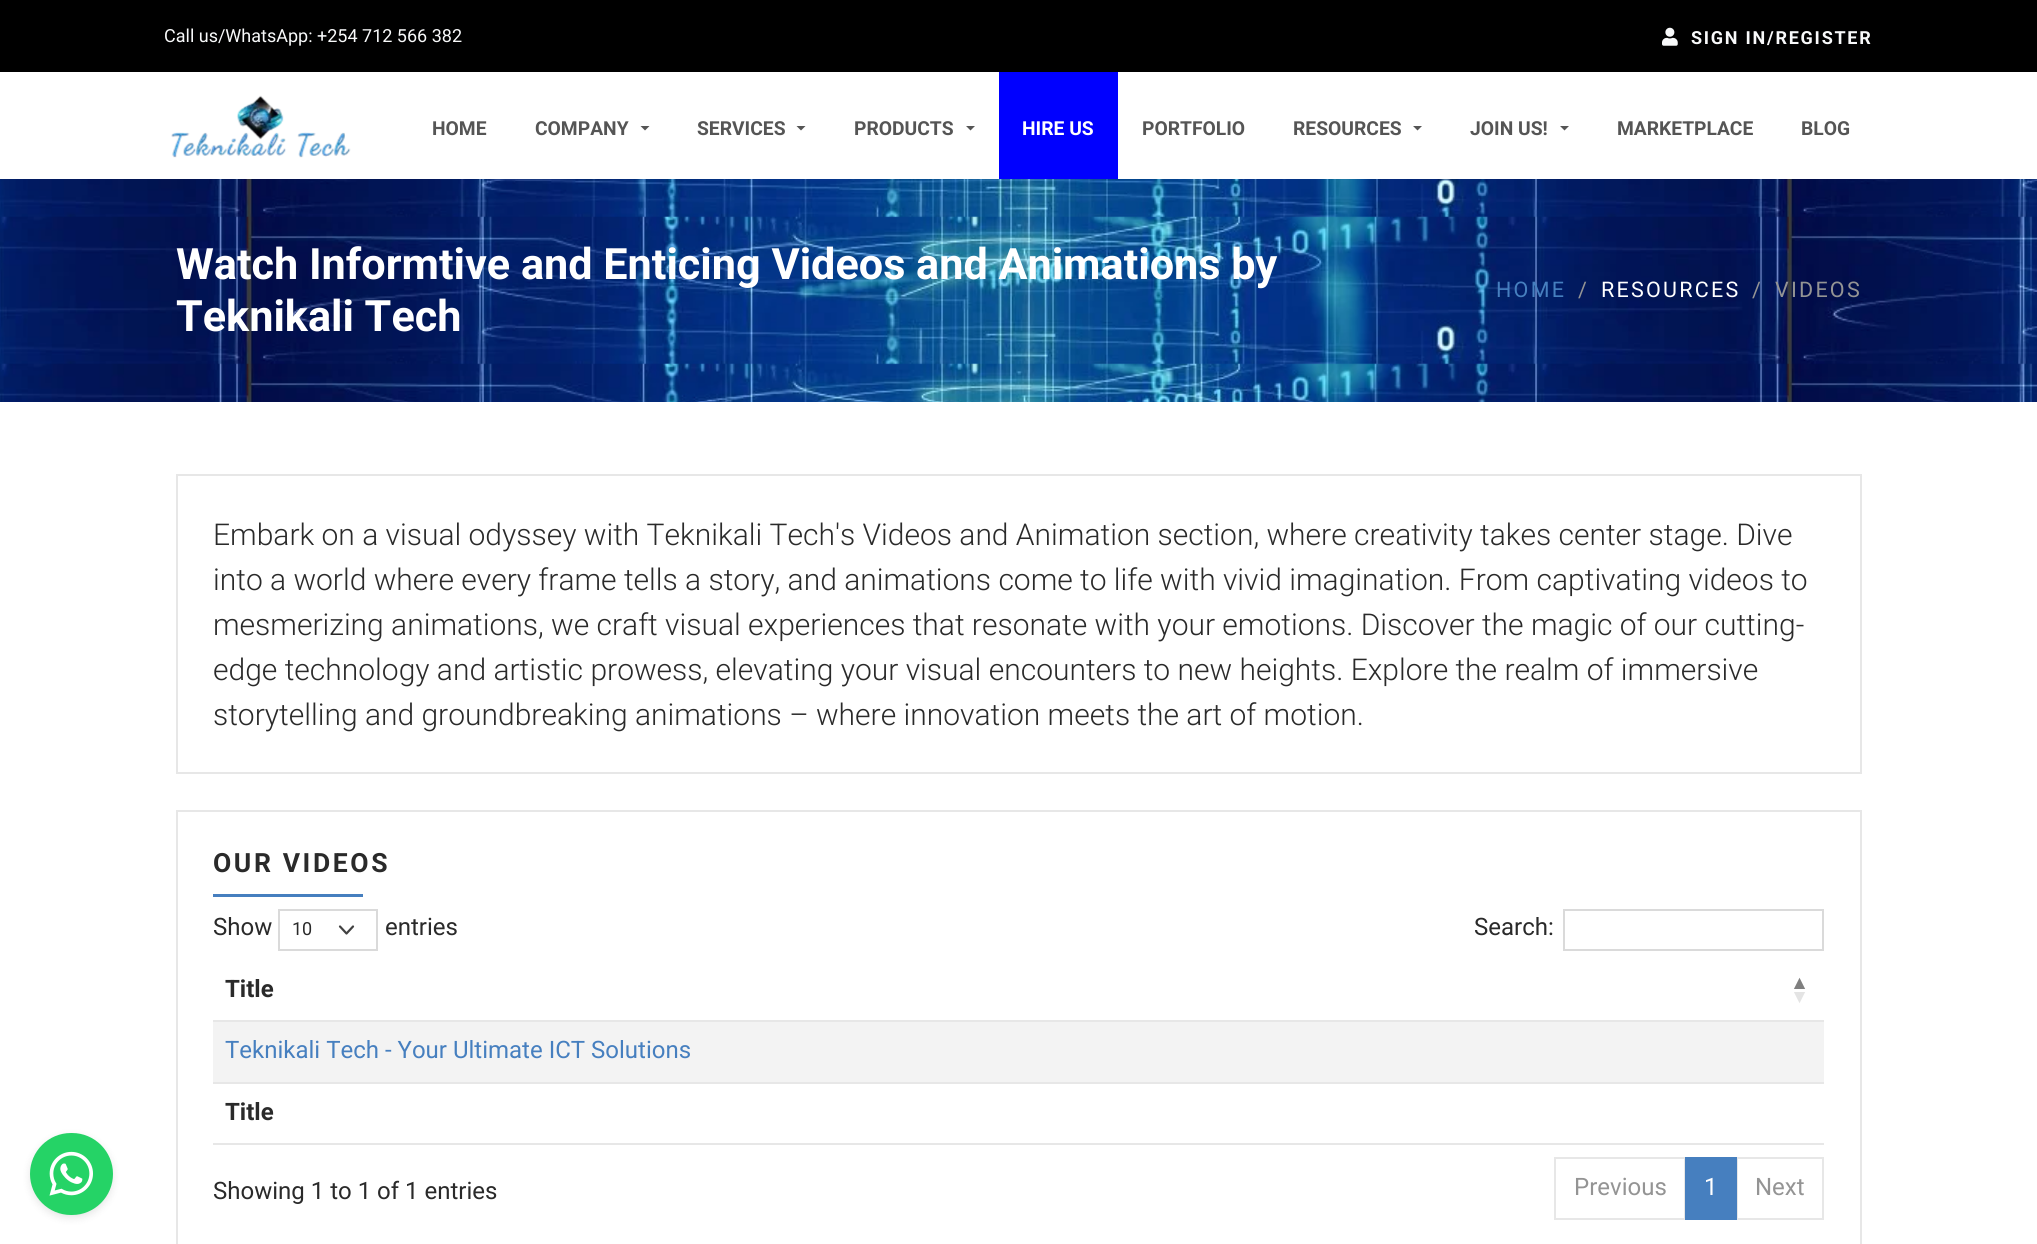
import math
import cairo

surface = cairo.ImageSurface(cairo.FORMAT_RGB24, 2037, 1244)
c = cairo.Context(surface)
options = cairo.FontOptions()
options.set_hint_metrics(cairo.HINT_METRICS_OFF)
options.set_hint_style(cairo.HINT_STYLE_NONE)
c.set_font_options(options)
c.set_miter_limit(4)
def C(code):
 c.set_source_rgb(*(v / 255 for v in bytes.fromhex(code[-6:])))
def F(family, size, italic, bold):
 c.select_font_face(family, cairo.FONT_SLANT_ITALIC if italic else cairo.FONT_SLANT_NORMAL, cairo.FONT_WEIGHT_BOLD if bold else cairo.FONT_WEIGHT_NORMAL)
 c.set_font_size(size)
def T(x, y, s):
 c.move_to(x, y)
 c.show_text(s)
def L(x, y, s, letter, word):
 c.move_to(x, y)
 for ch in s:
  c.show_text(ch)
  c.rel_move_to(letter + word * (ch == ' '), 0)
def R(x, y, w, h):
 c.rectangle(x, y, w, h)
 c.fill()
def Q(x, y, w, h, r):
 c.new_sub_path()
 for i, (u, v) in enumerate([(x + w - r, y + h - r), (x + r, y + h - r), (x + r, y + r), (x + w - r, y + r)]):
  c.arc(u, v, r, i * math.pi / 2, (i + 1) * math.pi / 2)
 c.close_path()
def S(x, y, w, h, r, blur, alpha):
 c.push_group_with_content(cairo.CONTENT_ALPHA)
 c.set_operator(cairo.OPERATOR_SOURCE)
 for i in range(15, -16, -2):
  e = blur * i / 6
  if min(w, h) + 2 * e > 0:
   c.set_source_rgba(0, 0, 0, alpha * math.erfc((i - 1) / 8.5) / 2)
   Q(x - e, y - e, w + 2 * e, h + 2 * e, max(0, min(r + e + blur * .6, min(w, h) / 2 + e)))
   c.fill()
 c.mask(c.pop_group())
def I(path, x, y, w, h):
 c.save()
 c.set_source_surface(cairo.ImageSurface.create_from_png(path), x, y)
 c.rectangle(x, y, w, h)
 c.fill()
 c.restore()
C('ffffff')
c.paint()
C('000000')
S(30,1136,83,82,41,4,.1)
C('25d366')
Q(30,1133,83,82,41)
c.fill()
I('1.png',49,1151,44,45)
C('000000')
R(0,0,2037,72)
F('Roboto',18,0,0)
C('f8f9fa')
T(164,42,'Call us/WhatsApp: +254 712 566 382')
I('2.png',1662,27,16,19)
F('Roboto',18,0,1)
L(1691,44,'SIGN IN/REGISTER',1.75,0)
I('3.png',171,95,180,63)
F('Roboto',19.25,0,1)
C('555555')
T(432,135,'HOME')
T(535,135,'COMPANY')
c.new_path()
c.move_to(640.5,126)
c.line_to(649.5,126)
c.line_to(645,130.5)
c.close_path()
c.fill()
T(697,135,'SERVICES')
c.new_path()
c.move_to(796.5,126)
c.line_to(805.5,126)
c.line_to(801,130.5)
c.close_path()
c.fill()
T(854,135,'PRODUCTS')
c.new_path()
c.move_to(966,126)
c.line_to(975,126)
c.line_to(970.5,130.5)
c.close_path()
c.fill()
C('0000ff')
R(999,72,119,107)
C('ffffff')
T(1022,135,'HIRE US')
C('555555')
T(1142,135,'PORTFOLIO')
T(1293,135,'RESOURCES')
c.new_path()
c.move_to(1413,126)
c.line_to(1422,126)
c.line_to(1417.5,130.5)
c.close_path()
c.fill()
T(1470,135,'JOIN US!')
c.new_path()
c.move_to(1560,126)
c.line_to(1569,126)
c.line_to(1564.5,130.5)
c.close_path()
c.fill()
T(1617,135,'MARKETPLACE')
T(1801,135,'BLOG')
I('4.png',0,179,2037,223)
F('Roboto',43.2,0,1)
C('ffffff')
T(176,279,'Watch Informtive and Enticing Videos and Animations by')
T(176,331,'Teknikali Tech')
F('Roboto',21.5,0,0)
C('467fbf')
L(1496,297,'HOME',2.25,0)
C('949494')
L(1578,297,'/',2.25,0)
C('ffffff')
L(1601,297,'RESOURCES',2.25,0)
C('949494')
L(1752,297,'/',2.25,0)
L(1775,297,'VIDEOS',2.25,0)
c.rectangle(177,475,1684,298)
C('e7e7e7')
c.stroke()
F('Roboto Light',30,0,0)
C('2a2a2a')
T(213,545,'Embark on a visual odyssey with Teknikali Tech\'s Videos and Animation section, where creativity takes center stage. Dive')
T(213,590,'into a world where every frame tells a story, and animations come to life with vivid imagination. From captivating videos to')
T(213,635,'mesmerizing animations, we craft visual experiences that resonate with your emotions. Discover the magic of our cutting-')
T(213,680,'edge technology and artistic prowess, elevating your visual encounters to new heights. Explore the realm of immersive')
T(213,725,'storytelling and groundbreaking animations – where innovation meets the art of motion.')
c.rectangle(177,811,1684,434)
C('e7e7e7')
c.stroke()
F('Roboto',26.5,0,1)
C('2a2a2a')
L(213,872,'OUR VIDEOS',2.6,0)
C('467fbf')
R(213,894,150,3)
F('Roboto',24,0,0)
C('2a2a2a')
T(213,935,'Show')
c.new_path()
c.move_to(340,926.5)
c.line_to(346.5,933.5)
c.line_to(353,926.5)
C('414141')
c.set_line_width(2.2)
c.set_line_cap(cairo.LINE_CAP_ROUND)
c.set_line_join(cairo.LINE_JOIN_ROUND)
c.stroke()
c.rectangle(279,910,98,40)
C('dadada')
c.set_line_width(2)
c.set_line_cap(cairo.LINE_CAP_BUTT)
c.set_line_join(cairo.LINE_JOIN_MITER)
c.stroke()
F('Roboto',18,0,0)
C('2a2a2a')
T(292,935,'10')
F('Roboto',24,0,0)
T(385,935,'entries')
T(1474,935,'Search:')
c.rectangle(1564,910,259,40)
C('dadada')
c.stroke()
C('e7e7e7')
R(213,1020,1611,2)
F('Roboto',24,0,1)
C('2a2a2a')
T(225,997,'Title')
F('Liberation Sans',19.25,0,1)
C('7f7f7f')
T(1790,989,'▲')
C('e4e4e4')
T(1790,1003,'▼')
C('f3f3f3')
R(213,1022,1611,60)
C('e7e7e7')
R(213,1082,1611,2)
F('Roboto',24,0,0)
C('467fbf')
T(225,1058,'Teknikali Tech - Your Ultimate ICT Solutions')
C('e7e7e7')
R(213,1143,1611,2)
F('Roboto',24,0,1)
C('2a2a2a')
T(225,1120,'Title')
F('Roboto',24,0,0)
T(213,1199,'Showing 1 to 1 of 1 entries')
c.rectangle(1555,1158,130,61)
C('e7e7e7')
c.stroke()
C('949494')
T(1574,1195,'Previous')
c.rectangle(1737,1158,86,61)
C('e7e7e7')
c.stroke()
C('467fbf')
R(1685,1157,52,63)
C('ffffff')
T(1704,1195,'1')
C('949494')
T(1755,1195,'Next')
surface.write_to_png('o.png')
